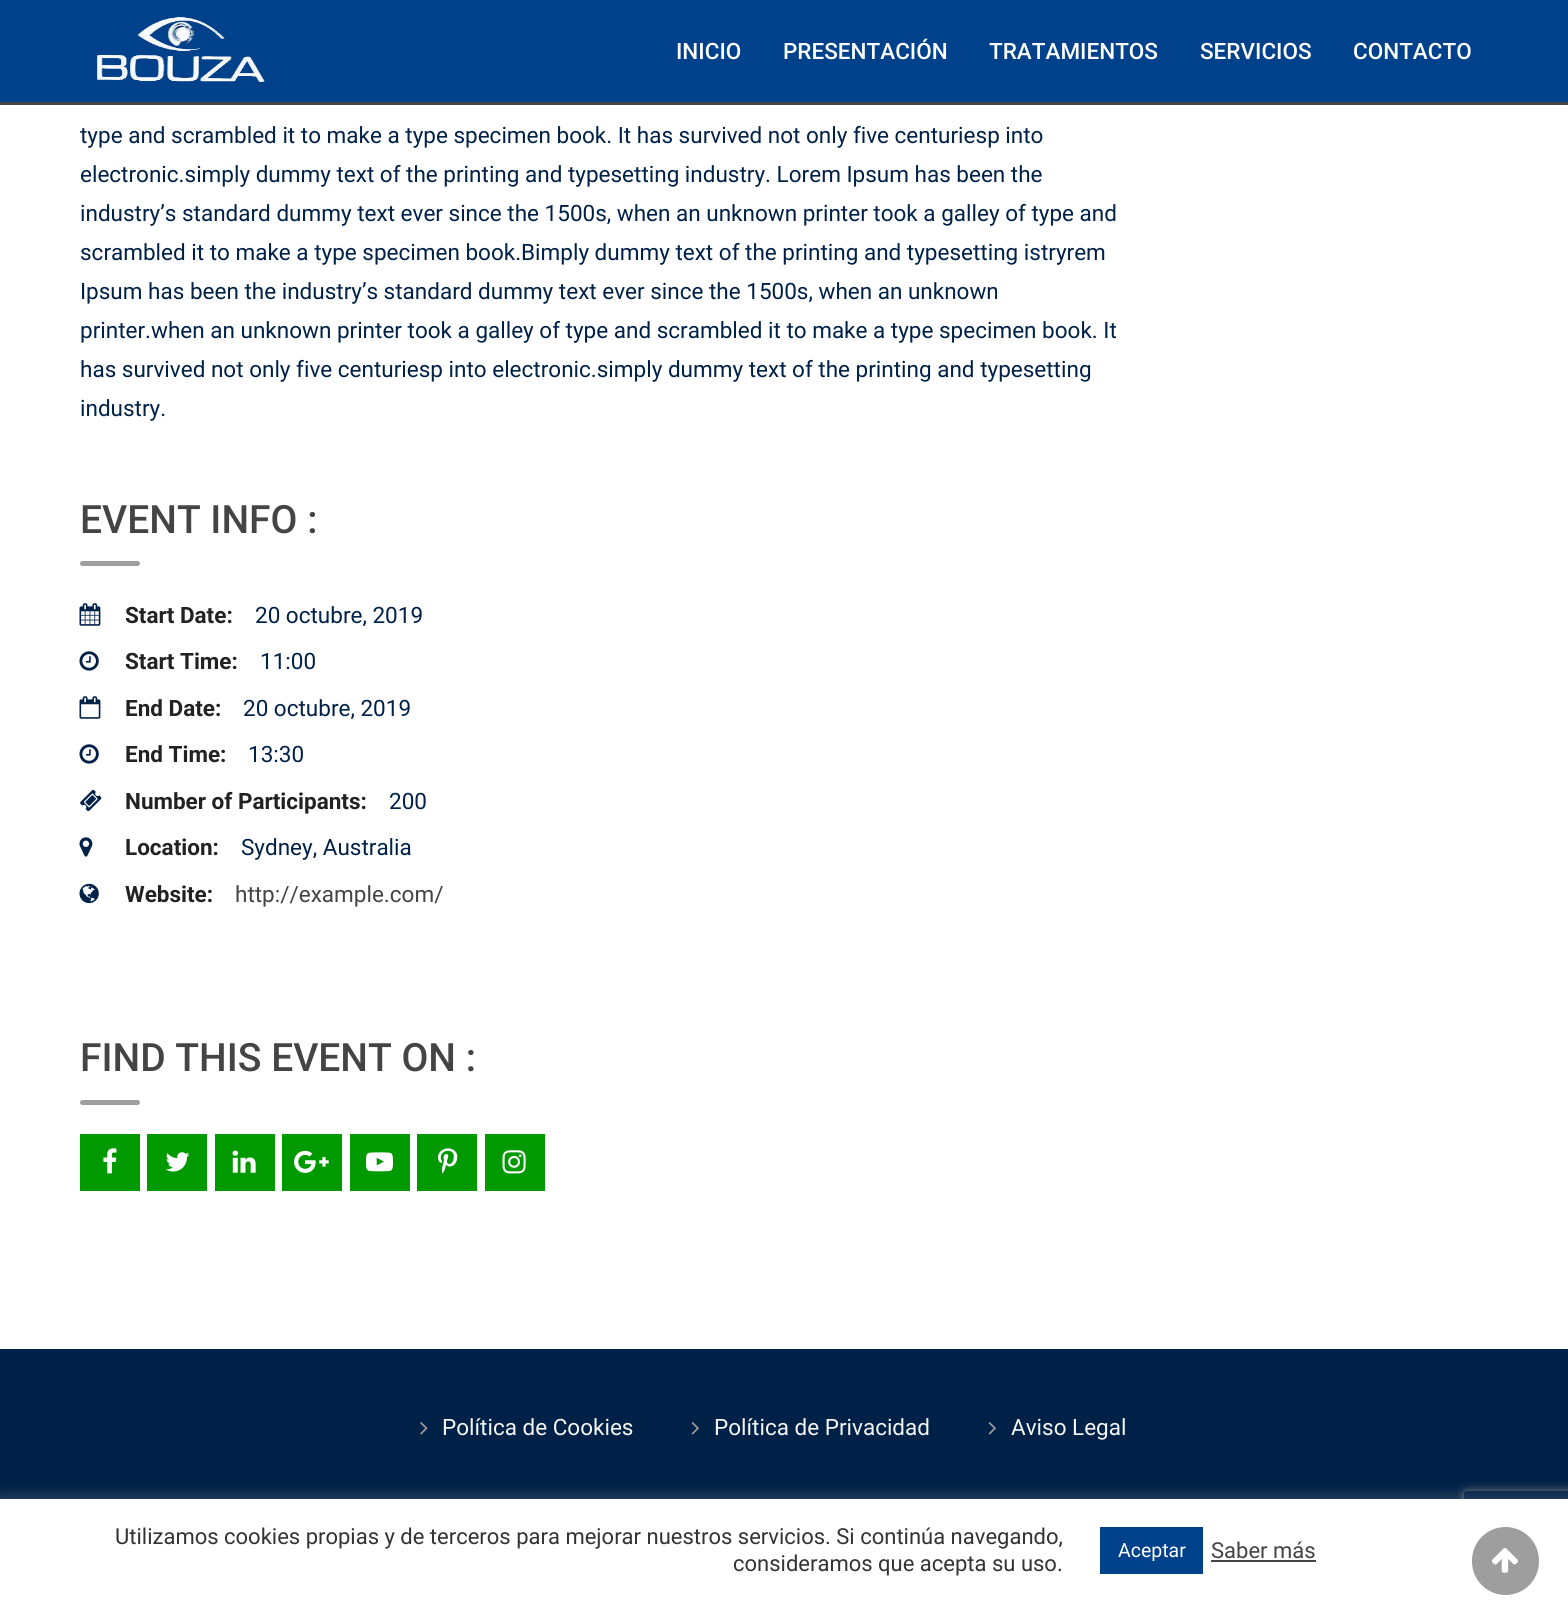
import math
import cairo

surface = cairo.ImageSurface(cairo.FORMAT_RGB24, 1568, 1601)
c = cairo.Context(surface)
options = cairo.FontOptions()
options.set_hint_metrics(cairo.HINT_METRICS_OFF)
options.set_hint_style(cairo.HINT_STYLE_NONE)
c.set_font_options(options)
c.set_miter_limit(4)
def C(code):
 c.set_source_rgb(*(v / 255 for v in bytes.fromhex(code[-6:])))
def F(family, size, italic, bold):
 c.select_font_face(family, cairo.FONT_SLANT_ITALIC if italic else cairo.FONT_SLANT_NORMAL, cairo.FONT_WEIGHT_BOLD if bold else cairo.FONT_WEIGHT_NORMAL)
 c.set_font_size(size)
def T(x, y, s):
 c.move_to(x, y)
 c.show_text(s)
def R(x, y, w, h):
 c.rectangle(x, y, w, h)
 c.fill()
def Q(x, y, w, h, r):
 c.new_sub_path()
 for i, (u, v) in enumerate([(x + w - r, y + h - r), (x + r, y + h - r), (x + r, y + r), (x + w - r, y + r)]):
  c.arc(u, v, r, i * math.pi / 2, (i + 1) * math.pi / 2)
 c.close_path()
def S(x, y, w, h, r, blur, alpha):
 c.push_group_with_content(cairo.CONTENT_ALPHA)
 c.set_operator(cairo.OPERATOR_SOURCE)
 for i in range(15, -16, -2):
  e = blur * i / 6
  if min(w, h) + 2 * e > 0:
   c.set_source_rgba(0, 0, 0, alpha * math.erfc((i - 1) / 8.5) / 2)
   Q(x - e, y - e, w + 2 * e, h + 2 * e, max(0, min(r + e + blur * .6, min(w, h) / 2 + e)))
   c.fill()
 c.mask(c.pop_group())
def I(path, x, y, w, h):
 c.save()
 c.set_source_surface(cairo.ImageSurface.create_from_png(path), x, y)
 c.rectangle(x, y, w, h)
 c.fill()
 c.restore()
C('ffffff')
c.paint()
C('00418c')
R(0,0,1568,102)
C('444444')
R(0,102,1568,3)
I('1.png',96,17,170,69)
F('Roboto Medium',22.5,0,0)
C('ffffff')
T(676,59,'INICIO')
T(783,59,'PRESENTACIÓN')
T(989,59,'TRATAMIENTOS')
T(1200,59,'SERVICIOS')
T(1353,59,'CONTACTO')
F('Roboto',22.5,0,0)
C('002147')
T(80,143,'type and scrambled it to make a type specimen book. It has survived not only five centuriesp into')
T(80,182,'electronic.simply dummy text of the printing and typesetting industry. Lorem Ipsum has been the')
T(80,221,'industry’s standard dummy text ever since the 1500s, when an unknown printer took a galley of type and')
T(80,260,'scrambled it to make a type specimen book.Bimply dummy text of the printing and typesetting istryrem')
T(80,299,'Ipsum has been the industry’s standard dummy text ever since the 1500s, when an unknown')
T(80,338,'printer.when an unknown printer took a galley of type and scrambled it to make a type specimen book. It')
T(80,377,'has survived not only five centuriesp into electronic.simply dummy text of the printing and typesetting')
T(80,416,'industry.')
F('Roboto Medium',39,0,0)
C('444444')
T(80,533,'EVENT INFO :')
C('9e9e9e')
Q(80,561,60,5,2.5)
c.fill()
I('2.png',79,603,22,23)
F('Roboto',22.5,0,1)
C('222222')
T(125,623,'Start Date:')
F('Roboto',22.5,0,0)
C('002147')
T(255,623,'20 octubre, 2019')
I('3.png',79,651,20,20)
F('Roboto',22.5,0,1)
C('222222')
T(125,669,'Start Time:')
F('Roboto',22.5,0,0)
C('002147')
T(260,669,'11:00')
I('4.png',79,696,22,23)
F('Roboto',22.5,0,1)
C('222222')
T(125,716,'End Date:')
F('Roboto',22.5,0,0)
C('002147')
T(243,716,'20 octubre, 2019')
I('3.png',79,744,20,20)
F('Roboto',22.5,0,1)
C('222222')
T(125,762,'End Time:')
F('Roboto',22.5,0,0)
C('002147')
T(248,762,'13:30')
I('5.png',80,789,22,22)
F('Roboto',22.5,0,1)
C('222222')
T(125,809,'Number of Participants:')
F('Roboto',22.5,0,0)
C('002147')
T(389,809,'200')
I('6.png',79,837,14,20)
F('Roboto',22.5,0,1)
C('222222')
T(125,855,'Location:')
F('Roboto',22.5,0,0)
C('002147')
T(241,855,'Sydney, Australia')
I('7.png',79,883,20,21)
F('Roboto',22.5,0,1)
C('222222')
T(125,902,'Website:')
F('Roboto',22.5,0,0)
C('444444')
T(235,902,'http://example.com/')
F('Roboto Medium',39,0,0)
T(80,1071,'FIND THIS EVENT ON :')
C('9e9e9e')
Q(80,1100,60,5,2.5)
c.fill()
C('009900')
R(80,1134,60,57)
I('8.png',103,1148,14,26)
R(147,1134,60,57)
I('9.png',165,1152,25,20)
R(215,1134,60,57)
I('10.png',232,1150,24,23)
R(282,1134,60,57)
I('11.png',294,1150,35,23)
R(350,1134,60,57)
I('12.png',366,1152,27,20)
R(417,1134,60,57)
I('13.png',438,1148,20,26)
R(485,1134,60,57)
I('14.png',502,1150,24,24)
C('002147')
R(0,1349,1568,150)
I('15.png',420,1422,8,13)
F('Roboto',22.5,0,0)
C('f5f5f5')
T(442,1435,'Política de Cookies')
I('16.png',691,1422,8,13)
T(714,1435,'Política de Privacidad')
I('16.png',988,1422,8,13)
T(1011,1435,'Aviso Legal')
C('acabab')
S(0,1497,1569,104,0,7.5,.3)
c.save()
c.set_fill_rule(cairo.FILL_RULE_EVEN_ODD)
c.new_path()
c.move_to(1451,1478)
c.line_to(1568,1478)
c.line_to(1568,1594)
c.line_to(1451,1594)
c.close_path()
c.move_to(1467,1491)
c.line_to(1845,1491)
c.curve_to(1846.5,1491,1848,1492.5,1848,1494)
c.line_to(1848,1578)
c.curve_to(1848,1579.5,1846.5,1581,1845,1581)
c.line_to(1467,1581)
c.curve_to(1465.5,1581,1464,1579.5,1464,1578)
c.line_to(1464,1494)
c.curve_to(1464,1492.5,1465.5,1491,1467,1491)
c.close_path()
c.clip()
C('808080')
S(1464,1491,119,90,3,4,1)
c.restore()
C('ffffff')
R(0,1499,1568,102)
F('Roboto',22,0,0)
C('333333')
T(115,1544,'Utilizamos cookies propias y de terceros para mejorar nuestros servicios. Si continúa navegando,')
T(733,1571,'consideramos que acepta su uso.')
C('00418c')
R(1100,1527,103,47)
F('Roboto',19.5,0,0)
C('ffffff')
T(1118,1557,'Aceptar')
F('Roboto',22,0,0)
C('444444')
T(1211,1558,'Saber más')
R(1211,1560,105,2)
C('9e9e9e')
Q(1472,1527,67,68,33.5)
c.fill()
I('17.png',1492,1548,26,25)
surface.write_to_png('o.png')
